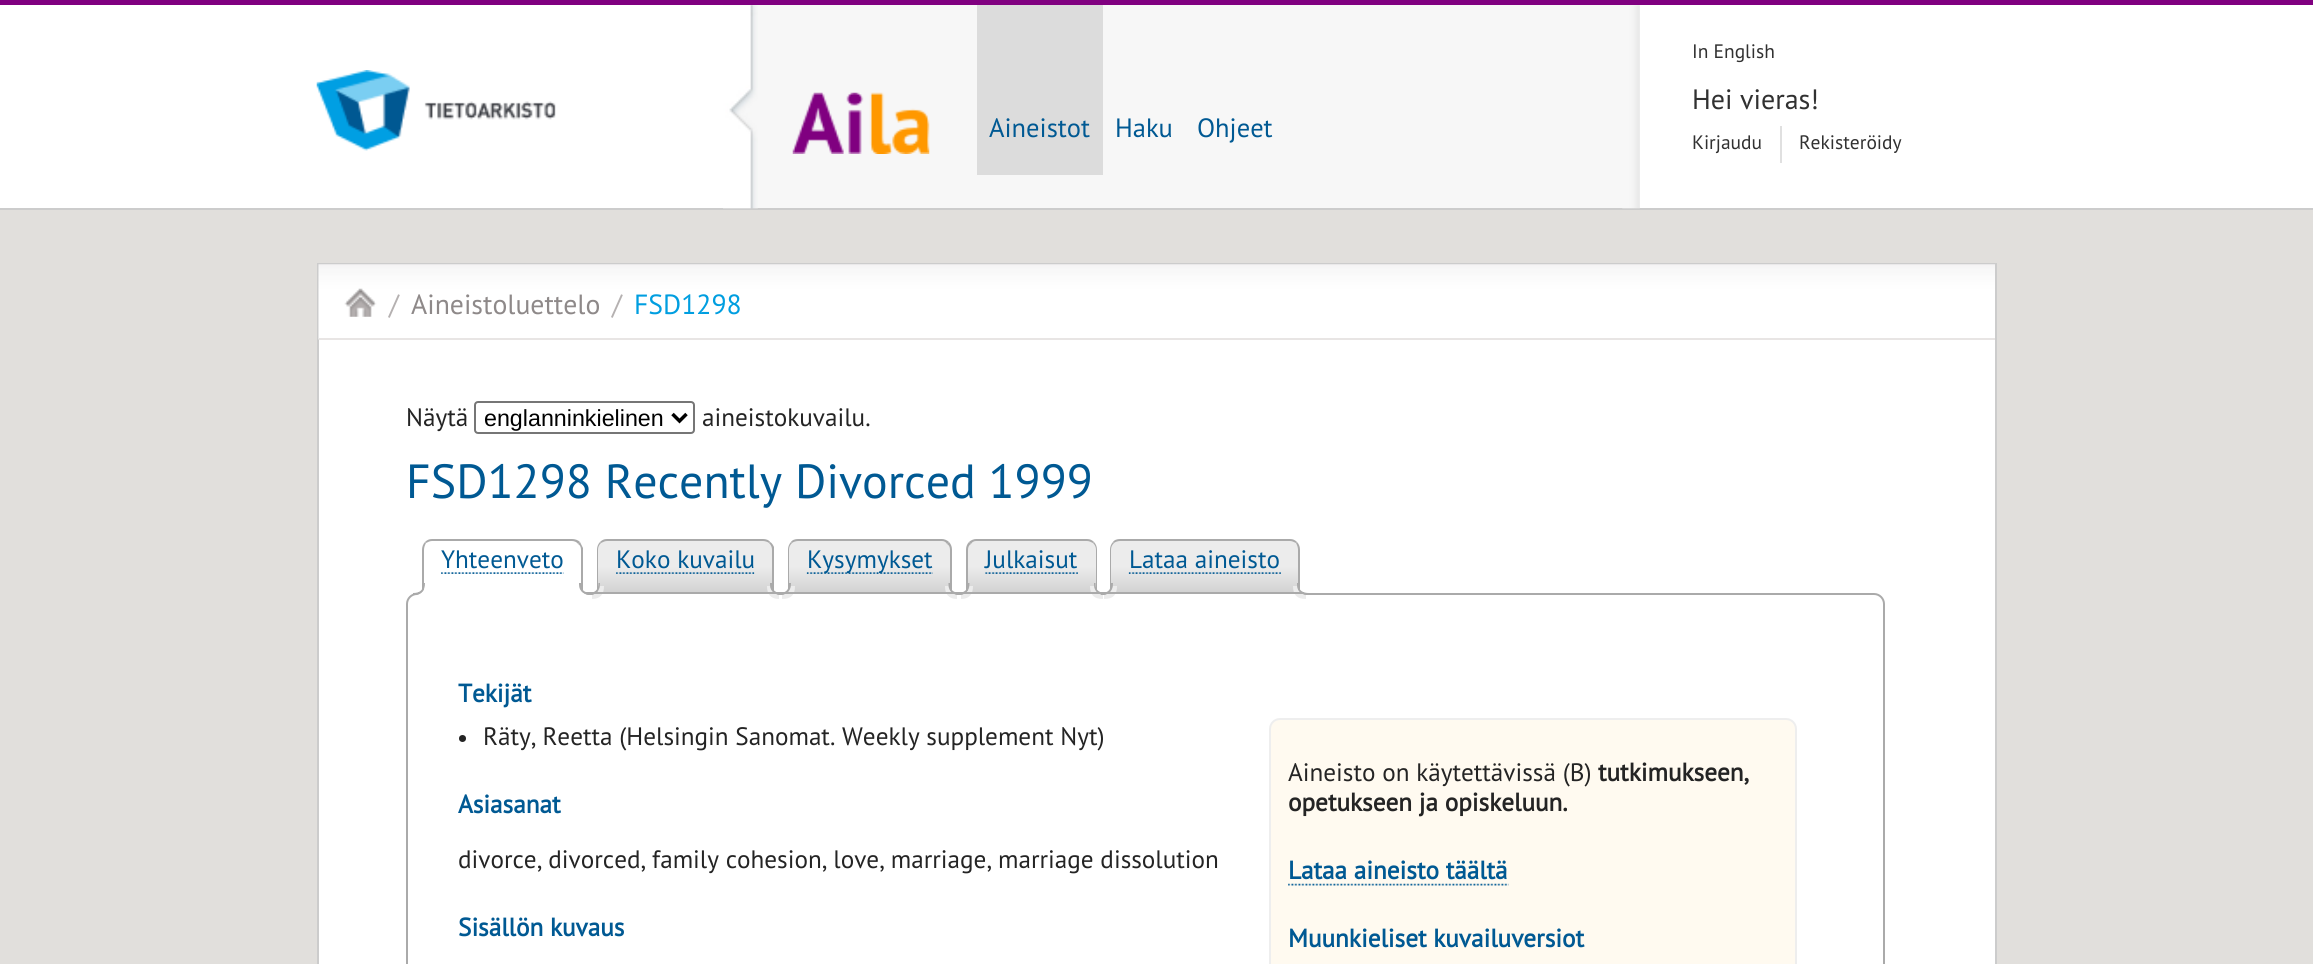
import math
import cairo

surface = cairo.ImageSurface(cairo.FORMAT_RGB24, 2313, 964)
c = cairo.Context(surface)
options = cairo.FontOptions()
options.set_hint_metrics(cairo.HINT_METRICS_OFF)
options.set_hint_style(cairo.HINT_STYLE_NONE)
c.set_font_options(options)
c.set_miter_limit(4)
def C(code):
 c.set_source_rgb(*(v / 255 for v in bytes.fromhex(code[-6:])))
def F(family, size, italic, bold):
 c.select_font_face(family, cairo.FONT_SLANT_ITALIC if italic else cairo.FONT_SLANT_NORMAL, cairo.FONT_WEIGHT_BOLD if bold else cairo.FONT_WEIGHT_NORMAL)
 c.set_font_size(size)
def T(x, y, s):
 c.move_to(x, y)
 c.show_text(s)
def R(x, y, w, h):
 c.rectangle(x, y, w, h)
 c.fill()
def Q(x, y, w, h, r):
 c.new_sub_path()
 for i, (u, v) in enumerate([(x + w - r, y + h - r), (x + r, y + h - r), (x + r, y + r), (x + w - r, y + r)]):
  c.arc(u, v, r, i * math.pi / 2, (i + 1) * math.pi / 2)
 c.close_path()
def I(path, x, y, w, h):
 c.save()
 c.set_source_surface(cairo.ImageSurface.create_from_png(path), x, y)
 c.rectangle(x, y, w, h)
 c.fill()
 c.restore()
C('e1dfdc')
c.paint()
C('ffffff')
R(0,5,2313,203)
C('800080')
R(0,0,2313,5)
C('cccccc')
R(0,208,2313,2)
I('1.png',316,70,240,81)
C('f7f7f7')
R(723,5,917,203)
I('2.png',723,5,35,204)
I('3.png',792,92,138,62)
I('4.png',1622,5,18,204)
C('dcdcdc')
R(977,5,126,170)
F('PT Sans',26.5,0,0)
C('005993')
T(989,137,'Aineistot')
T(1115,137,'Haku')
T(1197,137,'Ohjeet')
F('PT Sans',19.5,0,0)
C('313131')
T(1692,58,'In English')
F('PT Sans',28,0,0)
T(1692,109,'Hei vieras!')
F('PT Sans',19.5,0,0)
T(1692,149,'Kirjaudu')
C('e0e0e0')
R(1780,126,2,37)
C('313131')
T(1799,149,'Rekisteröidy')
C('ffffff')
R(319,340,1676,624)
c.rectangle(318,264,1678,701)
C('cccccc')
c.stroke()
I('5.png',318,264,1677,76)
C('e8e5e4')
R(319,338,1676,2)
I('6.png',344,288,33,29)
F('PT Sans',27.75,0,0)
C('b5b1b1')
T(389,314,'/')
C('8e8989')
T(411,314,'Aineistoluettelo')
C('b5b1b1')
T(612,314,'/')
C('009ee0')
T(634,314,'FSD1298')
F('PT Sans',25.2,0,0)
C('242424')
T(406,426,'Näytä')
Q(475,402,219,31,3)
C('767676')
c.stroke()
c.new_path()
c.move_to(672.5,414)
c.line_to(679.5,421)
c.line_to(686.5,414)
C('000000')
c.set_line_width(3.5)
c.stroke()
F('Liberation Sans',23.25,0,0)
T(484,426,'englanninkielinen')
F('PT Sans',25.2,0,0)
C('242424')
T(702,426,'aineistokuvailu.')
F('PT Sans',47.9,0,0)
C('005993')
T(406,498,'FSD1298 Recently Divorced 1999')
c.save()
c.new_path()
c.move_to(608,539)
c.line_to(763,539)
c.curve_to(769,539,774,544,774,550)
c.line_to(774,595)
c.line_to(597,595)
c.line_to(597,550)
c.curve_to(597,544,602,539,608,539)
c.close_path()
c.clip()
gradient = cairo.LinearGradient(685,541,685,593)
gradient.add_color_stop_rgba(.5,0.925,0.925,0.925,1)
gradient.add_color_stop_rgba(1,0.82,0.82,0.82,1)
c.set_source(gradient)
R(597,541,177,51)
c.restore()
C('aaaaaa')
c.new_path()
c.move_to(607,539)
c.curve_to(604,539,602,540,600,542)
c.line_to(601,543)
c.curve_to(603,542,605,541,607,541)
c.line_to(763,541)
c.curve_to(765,541,768,542,769,543)
c.line_to(770,542)
c.curve_to(769,540,766,539,763,539)
c.close_path()
c.fill()
Q(407,594,1477,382,10)
c.set_line_width(2)
c.stroke()
c.new_path()
c.move_to(774,547)
c.line_to(774,595)
c.line_to(772,593)
c.line_to(772,550)
c.curve_to(772,547,771,545,769,543)
c.line_to(770,542)
c.curve_to(772,543,773,545,774,547)
c.close_path()
c.fill()
C('ffffff')
c.new_path()
c.move_to(774,595)
c.line_to(772,593)
c.line_to(599,593)
c.line_to(597,595)
c.close_path()
c.fill()
C('aaaaaa')
c.new_path()
c.move_to(600,542)
c.curve_to(598,544,597,547,597,550)
c.line_to(597,595)
c.line_to(599,593)
c.line_to(598,593)
c.line_to(598,550)
c.curve_to(598,547,599,545,601,543)
c.close_path()
c.fill()
C('ececec')
c.new_path()
c.move_to(592,595)
c.line_to(592,599)
c.curve_to(600.5,599,604,594,604,586)
c.line_to(600,586)
c.curve_to(599.5,590.5,596,594,592,595)
c.close_path()
c.fill()
C('aaaaaa')
c.set_fill_rule(cairo.FILL_RULE_EVEN_ODD)
c.new_path()
c.move_to(588,583)
c.line_to(600,583)
c.curve_to(600,591,596,595,588,595)
c.close_path()
c.move_to(588,583)
c.line_to(598.5,583)
c.curve_to(598.5,590,595,593,588,593)
c.close_path()
c.fill()
C('ececec')
c.set_fill_rule(cairo.FILL_RULE_WINDING)
c.new_path()
c.move_to(767,586)
c.curve_to(767,594,770.5,599,779,599)
c.line_to(779,595)
c.curve_to(774.5,594,771,590.5,770,586)
c.close_path()
c.fill()
C('aaaaaa')
c.set_fill_rule(cairo.FILL_RULE_EVEN_ODD)
c.new_path()
c.move_to(770,583)
c.line_to(782,583)
c.line_to(782,595)
c.curve_to(775.5,595,770,592,770,584.5)
c.close_path()
c.move_to(772,583)
c.line_to(782,583)
c.line_to(782,593)
c.curve_to(776.5,593,772,591,772,584.5)
c.close_path()
c.fill()
c.save()
c.set_fill_rule(cairo.FILL_RULE_WINDING)
c.new_path()
c.move_to(799,539)
c.line_to(941,539)
c.curve_to(947,539,952,544,952,550)
c.line_to(952,595)
c.line_to(788,595)
c.line_to(788,550)
c.curve_to(788,544,793,539,799,539)
c.close_path()
c.clip()
gradient = cairo.LinearGradient(870,541,870,593)
gradient.add_color_stop_rgba(.5,0.925,0.925,0.925,1)
gradient.add_color_stop_rgba(1,0.82,0.82,0.82,1)
c.set_source(gradient)
R(788,541,164,51)
c.restore()
c.set_fill_rule(cairo.FILL_RULE_WINDING)
c.new_path()
c.move_to(798,539)
c.curve_to(795,539,792,540,791,542)
c.line_to(792,543)
c.curve_to(793,542,796,541,798,541)
c.line_to(942,541)
c.curve_to(944,541,946,542,947,544)
c.line_to(949,542)
c.curve_to(947,540,944,539,942,539)
c.close_path()
c.fill()
c.new_path()
c.move_to(952,595)
c.line_to(952,550)
c.curve_to(952,547,951,544,949,542)
c.line_to(947,544)
c.curve_to(949,545,950,547,950,550)
c.line_to(950,593)
c.close_path()
c.fill()
C('ffffff')
c.new_path()
c.move_to(952,595)
c.line_to(950,593)
c.line_to(790,593)
c.line_to(788,595)
c.close_path()
c.fill()
C('aaaaaa')
c.new_path()
c.move_to(791,542)
c.curve_to(789,544,788,547,788,550)
c.line_to(788,594)
c.line_to(790,593)
c.line_to(789,593)
c.line_to(789,550)
c.curve_to(789,547,790,545,792,543)
c.close_path()
c.fill()
C('ececec')
c.new_path()
c.move_to(782,595)
c.line_to(782,599)
c.curve_to(791,599,795,595,795,586)
c.line_to(791,586)
c.curve_to(790,590.5,786.5,594,782,595)
c.close_path()
c.fill()
C('aaaaaa')
c.set_fill_rule(cairo.FILL_RULE_EVEN_ODD)
c.new_path()
c.move_to(779,583)
c.line_to(791,583)
c.curve_to(791,591,787,595,779,595)
c.close_path()
c.move_to(779,583)
c.line_to(789,583)
c.curve_to(789,590,786,593,779,593)
c.close_path()
c.fill()
C('ececec')
c.set_fill_rule(cairo.FILL_RULE_WINDING)
c.new_path()
c.move_to(945,586)
c.curve_to(945,594,948.5,599,957,599)
c.line_to(957,595)
c.curve_to(952.5,594,949,590.5,948.5,586)
c.close_path()
c.fill()
C('aaaaaa')
c.set_fill_rule(cairo.FILL_RULE_EVEN_ODD)
c.new_path()
c.move_to(948.5,583)
c.line_to(961,583)
c.line_to(961,595)
c.curve_to(954,595,948.5,592,948.5,584.5)
c.close_path()
c.move_to(950,583)
c.line_to(961,583)
c.line_to(961,593)
c.curve_to(955,593,950,591,950,584.5)
c.close_path()
c.fill()
c.save()
c.set_fill_rule(cairo.FILL_RULE_WINDING)
c.new_path()
c.move_to(977,539)
c.line_to(1086,539)
c.curve_to(1092,539,1097,544,1097,550)
c.line_to(1097,595)
c.line_to(966,595)
c.line_to(966,550)
c.curve_to(966,544,971,539,977,539)
c.close_path()
c.clip()
gradient = cairo.LinearGradient(1032,541,1032,593)
gradient.add_color_stop_rgba(.5,0.925,0.925,0.925,1)
gradient.add_color_stop_rgba(1,0.82,0.82,0.82,1)
c.set_source(gradient)
R(966,541,131,51)
c.restore()
c.set_fill_rule(cairo.FILL_RULE_WINDING)
c.new_path()
c.move_to(976,539)
c.curve_to(974,539,971,540,969,542)
c.line_to(971,544)
c.curve_to(972,542,974,541,976,541)
c.line_to(1087,541)
c.curve_to(1089,541,1091,542,1093,543)
c.line_to(1094,542)
c.curve_to(1092,540,1090,539,1087,539)
c.close_path()
c.fill()
c.new_path()
c.move_to(1094,542)
c.curve_to(1096,544,1097,547,1097,550)
c.line_to(1097,595)
c.line_to(1095,593)
c.line_to(1096,593)
c.line_to(1096,550)
c.curve_to(1096,547,1095,545,1093,543)
c.close_path()
c.fill()
C('ffffff')
c.new_path()
c.move_to(1097,595)
c.line_to(1095,593)
c.line_to(968,593)
c.line_to(966,595)
c.close_path()
c.fill()
C('aaaaaa')
c.new_path()
c.move_to(966,595)
c.line_to(968,593)
c.line_to(968,550)
c.curve_to(968,547,969,545,971,544)
c.line_to(969,542)
c.curve_to(967,544,966,547,966,550)
c.close_path()
c.fill()
C('ececec')
c.new_path()
c.move_to(961,595)
c.line_to(961,599)
c.curve_to(969.5,599,973,594,973,586)
c.line_to(969.5,586)
c.curve_to(969,590.5,965.5,594,961,595)
c.close_path()
c.fill()
C('aaaaaa')
c.set_fill_rule(cairo.FILL_RULE_EVEN_ODD)
c.new_path()
c.move_to(957,583)
c.line_to(969.5,583)
c.curve_to(969.5,591,965.5,595,957,595)
c.close_path()
c.move_to(957,583)
c.line_to(968,583)
c.curve_to(968,590,964.5,593,957,593)
c.close_path()
c.fill()
C('ececec')
c.set_fill_rule(cairo.FILL_RULE_WINDING)
c.new_path()
c.move_to(1090,586)
c.curve_to(1090,595,1094,599,1103,599)
c.line_to(1103,595)
c.curve_to(1098.5,594.5,1094.5,590.5,1094,586)
c.close_path()
c.fill()
C('aaaaaa')
c.set_fill_rule(cairo.FILL_RULE_EVEN_ODD)
c.new_path()
c.move_to(1094,583)
c.line_to(1106,583)
c.line_to(1106,595)
c.curve_to(1099.5,595,1094,592,1094,584.5)
c.close_path()
c.move_to(1095.5,583)
c.line_to(1106,583)
c.line_to(1106,593)
c.curve_to(1100.5,593,1095.5,591,1095.5,584.5)
c.close_path()
c.fill()
c.save()
c.set_fill_rule(cairo.FILL_RULE_WINDING)
c.new_path()
c.move_to(1121,539)
c.line_to(1289,539)
c.curve_to(1295,539,1300,544,1300,550)
c.line_to(1300,595)
c.line_to(1110,595)
c.line_to(1110,550)
c.curve_to(1110,544,1115,539,1121,539)
c.close_path()
c.clip()
gradient = cairo.LinearGradient(1205,541,1205,593)
gradient.add_color_stop_rgba(.5,0.925,0.925,0.925,1)
gradient.add_color_stop_rgba(1,0.82,0.82,0.82,1)
c.set_source(gradient)
R(1110,541,190,51)
c.restore()
c.set_fill_rule(cairo.FILL_RULE_WINDING)
c.new_path()
c.move_to(1120,539)
c.curve_to(1117,539,1114,540,1113,542)
c.line_to(1114,543)
c.curve_to(1115,542,1118,541,1120,541)
c.line_to(1290,541)
c.curve_to(1292,541,1294,542,1296,543)
c.line_to(1297,542)
c.curve_to(1295,540,1293,539,1290,539)
c.close_path()
c.fill()
c.new_path()
c.move_to(1297,542)
c.curve_to(1299,544,1300,547,1300,550)
c.line_to(1300,595)
c.line_to(1298,593)
c.line_to(1298,550)
c.curve_to(1298,547,1297,545,1296,543)
c.close_path()
c.fill()
C('ffffff')
c.new_path()
c.move_to(1110,595)
c.line_to(1300,595)
c.line_to(1298,593)
c.line_to(1112,593)
c.close_path()
c.fill()
C('aaaaaa')
c.new_path()
c.move_to(1113,542)
c.curve_to(1111,544,1110,547,1110,550)
c.line_to(1110,594)
c.line_to(1112,593)
c.line_to(1111,593)
c.line_to(1111,550)
c.curve_to(1111,547,1112,545,1114,543)
c.close_path()
c.fill()
C('ececec')
c.new_path()
c.move_to(1104,595)
c.line_to(1104,599)
c.curve_to(1113,599,1117,595,1117,586)
c.line_to(1113,586)
c.curve_to(1112,590.5,1108.5,594,1104,595)
c.close_path()
c.fill()
C('aaaaaa')
c.set_fill_rule(cairo.FILL_RULE_EVEN_ODD)
c.new_path()
c.move_to(1101,583)
c.line_to(1113,583)
c.curve_to(1113,591,1109,595,1101,595)
c.close_path()
c.move_to(1101,583)
c.line_to(1111,583)
c.curve_to(1111,590,1108,593,1101,593)
c.close_path()
c.fill()
C('ececec')
c.set_fill_rule(cairo.FILL_RULE_WINDING)
c.new_path()
c.move_to(1293,586)
c.curve_to(1293,595,1297,599,1306,599)
c.line_to(1306,595)
c.curve_to(1301.5,594.5,1297.5,590.5,1297,586)
c.close_path()
c.fill()
C('aaaaaa')
c.set_fill_rule(cairo.FILL_RULE_EVEN_ODD)
c.new_path()
c.move_to(1297,583)
c.line_to(1309,583)
c.line_to(1309,595)
c.curve_to(1302.5,595,1297,592,1297,584.5)
c.close_path()
c.move_to(1298.5,583)
c.line_to(1309,583)
c.line_to(1309,593)
c.curve_to(1303.5,593,1298.5,591,1298.5,584.5)
c.close_path()
c.fill()
R(418,592,886,2)
C('ffffff')
c.new_path()
c.move_to(433,539)
c.line_to(572,539)
c.curve_to(578,539,583,544,583,550)
c.line_to(583,595)
c.line_to(422,595)
c.line_to(422,550)
c.curve_to(422,544,427,539,433,539)
c.close_path()
c.fill()
C('aaaaaa')
c.set_fill_rule(cairo.FILL_RULE_WINDING)
c.new_path()
c.move_to(432,539)
c.curve_to(429,539,427,540,425,542)
c.line_to(426,543)
c.curve_to(428,542,430,541,432,541)
c.line_to(572,541)
c.curve_to(574,541,577,542,578,544)
c.line_to(580,542)
c.curve_to(578,540,575,539,572,539)
c.close_path()
c.fill()
c.new_path()
c.move_to(583,548)
c.line_to(583,595)
c.line_to(581,593)
c.line_to(581,550)
c.curve_to(581,547,580,545,578,544)
c.line_to(580,542)
c.curve_to(581,544,582,546,583,548)
c.close_path()
c.fill()
C('ffffff')
c.new_path()
c.move_to(583,595)
c.line_to(581,593)
c.line_to(424,593)
c.line_to(422,595)
c.close_path()
c.fill()
C('aaaaaa')
c.new_path()
c.move_to(425,542)
c.curve_to(423,544,422,547,422,550)
c.line_to(422,595)
c.line_to(424,593)
c.line_to(424,550)
c.curve_to(424,547,425,545,426,543)
c.close_path()
c.fill()
F('PT Sans',25.2,0,0)
C('005993')
T(441,568,'Yhteenveto')
I('7.png',441,572,123,2)
C('ffffff')
c.new_path()
c.move_to(417,595)
c.line_to(417,599)
c.curve_to(425.5,599,429,594,429,586)
c.line_to(425,586)
c.curve_to(424.5,590.5,421,594,417,595)
c.close_path()
c.fill()
C('aaaaaa')
c.set_fill_rule(cairo.FILL_RULE_EVEN_ODD)
c.new_path()
c.move_to(413,583)
c.line_to(425,583)
c.curve_to(425,591,421,595,413,595)
c.close_path()
c.move_to(413,583)
c.line_to(423.5,583)
c.curve_to(423.5,590,420,593,413,593)
c.close_path()
c.fill()
C('ffffff')
c.set_fill_rule(cairo.FILL_RULE_WINDING)
c.new_path()
c.move_to(576,586)
c.curve_to(576,594,579.5,599,588,599)
c.line_to(588,595)
c.curve_to(583.5,594,580,590.5,579.5,586)
c.close_path()
c.fill()
C('aaaaaa')
c.set_fill_rule(cairo.FILL_RULE_EVEN_ODD)
c.new_path()
c.move_to(579,583)
c.line_to(591.5,583)
c.line_to(591.5,595)
c.curve_to(585,595,579,592,579,584.5)
c.close_path()
c.move_to(581,583)
c.line_to(591.5,583)
c.line_to(591.5,593)
c.curve_to(586,593,581,591,581,584.5)
c.close_path()
c.fill()
C('005993')
T(616,568,'Koko kuvailu')
I('8.png',616,572,139,2)
I('9.png',806,572,127,2)
T(807,568,'Kysymykset')
T(985,568,'Julkaisut')
I('10.png',985,572,93,2)
T(1129,568,'Lataa aineisto')
I('11.png',1128,572,153,2)
F('PT Sans',25.2,0,1)
T(458,702,'Tekijät')
C('242424')
c.new_path()
c.arc(462.5,738.5,3.5,0,2 * math.pi)
c.fill()
F('PT Sans',25.2,0,0)
T(483,745,'Räty, Reetta (Helsingin Sanomat. Weekly supplement Nyt)')
F('PT Sans',25.2,0,1)
C('005993')
T(458,813,'Asiasanat')
C('fffaf0')
Q(1270,719,526,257,10)
c.fill_preserve()
C('eeeeee')
c.stroke()
F('PT Sans',25.2,0,0)
C('242424')
T(1288,781,'Aineisto on käytettävissä (B)')
F('PT Sans',25.2,0,1)
T(1598,781,'tutkimukseen,')
T(1288,811,'opetukseen ja opiskeluun.')
C('005993')
T(1288,879,'Lataa aineisto täältä')
I('12.png',1288,883,221,3)
T(1288,947,'Muunkieliset kuvailuversiot')
F('PT Sans',25.2,0,0)
C('242424')
T(458,868,'divorce, divorced, family cohesion, love, marriage, marriage dissolution')
F('PT Sans',25.2,0,1)
C('005993')
T(458,936,'Sisällön kuvaus')
surface.write_to_png('o.png')
